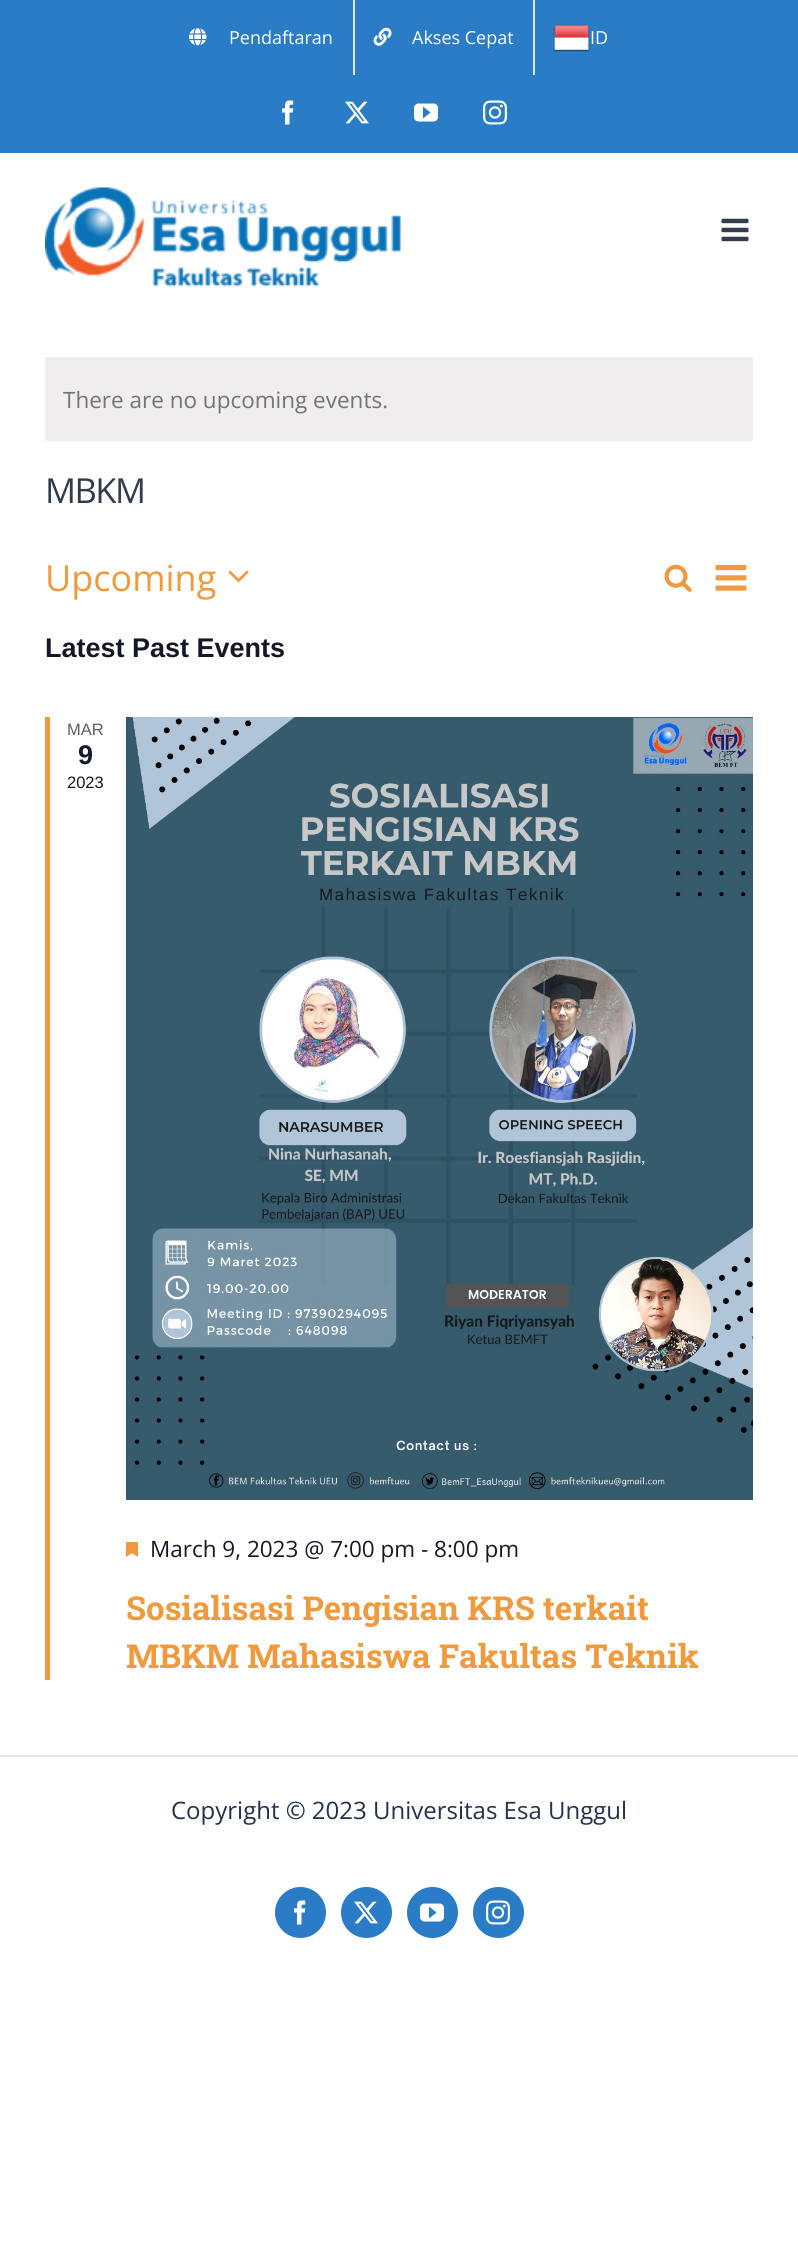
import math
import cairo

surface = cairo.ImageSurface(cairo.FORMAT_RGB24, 798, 2248)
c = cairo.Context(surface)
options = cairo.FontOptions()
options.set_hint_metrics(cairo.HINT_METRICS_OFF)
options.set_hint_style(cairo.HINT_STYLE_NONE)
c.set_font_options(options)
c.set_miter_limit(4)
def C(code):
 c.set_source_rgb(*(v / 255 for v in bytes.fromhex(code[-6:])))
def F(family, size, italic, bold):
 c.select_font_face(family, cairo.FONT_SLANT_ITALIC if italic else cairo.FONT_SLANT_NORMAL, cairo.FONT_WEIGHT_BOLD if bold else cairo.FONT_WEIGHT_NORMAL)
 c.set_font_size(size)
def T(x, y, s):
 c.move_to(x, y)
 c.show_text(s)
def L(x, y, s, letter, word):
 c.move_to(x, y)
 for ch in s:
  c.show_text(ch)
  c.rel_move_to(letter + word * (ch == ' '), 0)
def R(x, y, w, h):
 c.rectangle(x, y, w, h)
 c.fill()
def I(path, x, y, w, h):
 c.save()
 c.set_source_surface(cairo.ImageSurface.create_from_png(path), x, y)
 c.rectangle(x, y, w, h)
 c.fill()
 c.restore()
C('ffffff')
c.paint()
C('2a7cc7')
R(0,0,798,153)
I('1.png',189,28,18,18)
F('Open Sans',18,0,0)
C('ffffff')
T(229,44,'Pendaftaran')
C('e5e5e5')
R(353,0,2,75)
I('2.png',373,27,19,19)
C('ffffff')
T(412,44,'Akses Cepat')
C('e5e5e5')
R(533,0,2,75)
I('3.png',553,24,37,28)
C('ffffff')
T(590,44,'ID')
I('4.png',282,100,12,25)
I('5.png',345,101,24,23)
I('6.png',414,103,24,19)
I('7.png',483,100,24,25)
I('8.png',45,187,356,100)
I('9.png',721,218,28,24)
C('efeded')
R(45,357,708,84)
F('Open Sans',22.5,0,0)
C('747474')
T(63,408,'There are no upcoming events.')
F('Open Sans',34.5,0,0)
C('333c4e')
L(45,503,'MBKM',-1.5,0)
F('Open Sans',36,0,0)
C('ef9a3d')
T(45,591,'Upcoming')
I('10.png',228,570,21,13)
I('11.png',664,564,28,28)
I('12.png',715,564,32,27)
F('Liberation Sans',27,0,1)
C('141827')
T(45,657,'Latest Past Events')
C('f09a3e')
R(45,717,5,963)
F('Liberation Sans',16.5,0,0)
C('5d5d5d')
T(67,735,'MAR')
F('Liberation Sans',27,0,1)
C('141827')
T(78,764,'9')
F('Liberation Sans',16.5,0,0)
T(67,788,'2023')
I('13.png',126,717,627,783)
I('14.png',126,1542,12,15)
F('Open Sans',22.5,0,0)
T(150,1557,'March 9, 2023 @ 7:00 pm - 8:00 pm')
F('Roboto Slab',33,0,1)
C('ef9a3d')
T(126,1620,'Sosialisasi Pengisian KRS terkait')
T(126,1668,'MBKM Mahasiswa Fakultas Teknik')
C('e7e4e2')
R(0,1755,798,2)
F('Open Sans',24,0,0)
C('26304f')
T(171,1819,'Copyright © 2023 Universitas Esa Unggul')
C('2a7cc7')
c.new_path()
c.arc(300.5,1912.5,24.5,0,2 * math.pi)
c.fill_preserve()
c.stroke()
I('4.png',294,1900,12,25)
c.arc(366.5,1912.5,24.5,0,2 * math.pi)
c.fill_preserve()
c.stroke()
I('5.png',354,1901,24,23)
c.arc(432.5,1912.5,24.5,0,2 * math.pi)
c.fill_preserve()
c.stroke()
I('6.png',420,1903,24,19)
c.arc(498.5,1912.5,24.5,0,2 * math.pi)
c.fill_preserve()
c.stroke()
I('7.png',486,1900,24,25)
surface.write_to_png('o.png')
